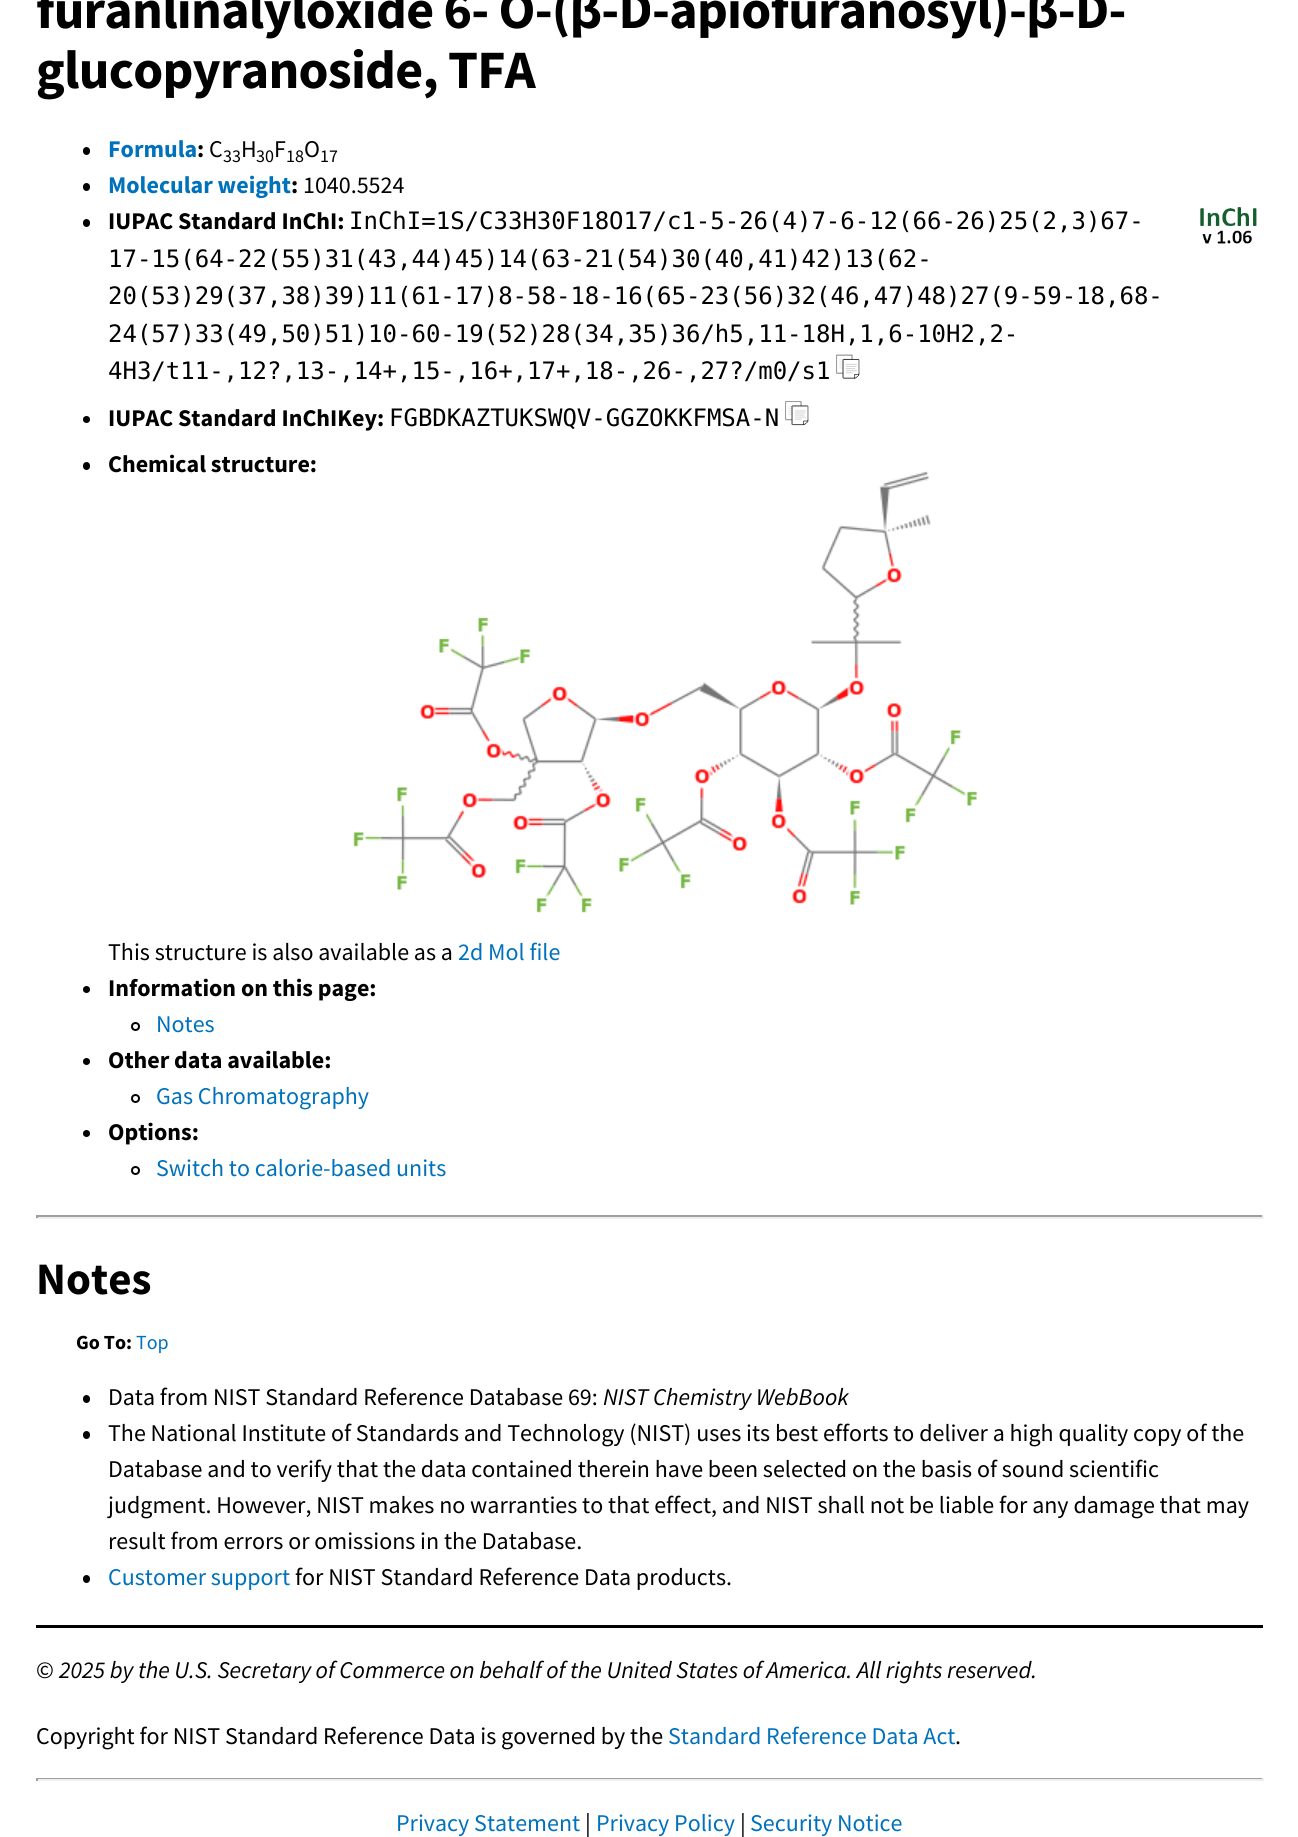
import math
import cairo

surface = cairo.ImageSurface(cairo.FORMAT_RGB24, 1298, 1837)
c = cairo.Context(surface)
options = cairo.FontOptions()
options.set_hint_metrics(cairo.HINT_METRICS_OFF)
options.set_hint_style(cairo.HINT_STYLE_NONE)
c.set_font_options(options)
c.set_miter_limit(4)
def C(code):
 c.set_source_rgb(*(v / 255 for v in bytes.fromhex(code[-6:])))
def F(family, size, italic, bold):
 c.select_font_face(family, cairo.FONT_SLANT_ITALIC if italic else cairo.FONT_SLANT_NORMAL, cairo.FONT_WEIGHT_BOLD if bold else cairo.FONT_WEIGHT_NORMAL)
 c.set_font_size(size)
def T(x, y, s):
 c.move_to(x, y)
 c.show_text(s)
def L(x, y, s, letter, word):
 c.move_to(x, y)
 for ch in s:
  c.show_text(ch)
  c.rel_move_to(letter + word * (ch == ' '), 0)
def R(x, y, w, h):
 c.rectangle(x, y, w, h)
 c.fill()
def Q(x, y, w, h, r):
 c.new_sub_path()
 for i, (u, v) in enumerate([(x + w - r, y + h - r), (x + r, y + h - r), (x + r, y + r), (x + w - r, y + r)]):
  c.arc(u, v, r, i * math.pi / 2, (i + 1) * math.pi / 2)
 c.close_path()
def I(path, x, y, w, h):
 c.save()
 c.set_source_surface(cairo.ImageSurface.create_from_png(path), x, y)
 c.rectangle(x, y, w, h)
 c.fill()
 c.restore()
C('ffffff')
c.paint()
F('Source Sans Pro',54,0,1)
C('000000')
L(36,28,'furanlinalyloxide 6- O-(β-D-apiofuranosyl)-β-D-',-.75,0)
L(36,88,'glucopyranoside, TFA',-.75,0)
Q(83,147,7,8,3.5)
c.fill()
F('Source Sans Pro',24,0,1)
C('0071bc')
T(108,157,'Formula')
C('000000')
T(197,157,':')
F('Source Sans Pro',24,0,0)
T(209,157,'C')
F('Source Sans Pro',18,0,0)
T(223,162,'33')
F('Source Sans Pro',24,0,0)
T(241,157,'H')
F('Source Sans Pro',18,0,0)
T(256,162,'30')
F('Source Sans Pro',24,0,0)
T(274,157,'F')
F('Source Sans Pro',18,0,0)
T(286,162,'18')
F('Source Sans Pro',24,0,0)
T(304,157,'O')
F('Source Sans Pro',18,0,0)
T(320,162,'17')
Q(83,183,7,8,3.5)
c.fill()
F('Source Sans Pro',24,0,1)
C('0071bc')
T(108,193,'Molecular weight')
C('000000')
T(291,193,':')
F('Source Sans Pro',24,0,0)
T(303,193,'1040.5524')
Q(83,219,7,8,3.5)
c.fill()
F('Source Sans Pro',24,0,1)
T(108,229,'IUPAC Standard InChI:')
F('DejaVu Sans Mono',24,0,0)
T(349,229,'InChI=1S/C33H30F18O17/c1-5-26(4)7-6-12(66-26)25(2,3)67-')
T(108,267,'17-15(64-22(55)31(43,44)45)14(63-21(54)30(40,41)42)13(62-')
T(108,304,'20(53)29(37,38)39)11(61-17)8-58-18-16(65-23(56)32(46,47)48)27(9-59-18,68-')
T(108,342,'24(57)33(49,50)51)10-60-19(52)28(34,35)36/h5,11-18H,1,6-10H2,2-')
T(108,379,'4H3/t11-,12?,13-,14+,15-,16+,17+,18-,26-,27?/m0/s1')
I('1.png',836,354,24,25)
I('2.png',1200,207,57,37)
c.arc(86.5,419.5,3.5,0,2 * math.pi)
c.fill()
F('Source Sans Pro',24,0,1)
T(108,426,'IUPAC Standard InChIKey:')
F('DejaVu Sans Mono',24,0,0)
T(389,426,'FGBDKAZTUKSWQV-GGZOKKFMSA-N')
I('3.png',785,401,24,25)
Q(83,462,7,8,3.5)
c.fill()
F('Source Sans Pro',24,0,1)
T(108,472,'Chemical structure:')
I('4.png',353,471,625,442)
F('Source Sans Pro',24,0,0)
T(108,960,'This structure is also available as a')
C('0071bc')
T(458,960,'2d Mol file')
C('000000')
c.new_path()
c.arc(86.5,989.5,3.5,0,2 * math.pi)
c.fill()
F('Source Sans Pro',24,0,1)
T(108,996,'Information on this page:')
c.new_path()
c.arc(135.5,1026.5,3.5,0,2 * math.pi)
c.stroke()
F('Source Sans Pro',24,0,0)
C('0071bc')
T(156,1032,'Notes')
C('000000')
c.new_path()
c.arc(86.5,1061.5,3.5,0,2 * math.pi)
c.fill()
F('Source Sans Pro',24,0,1)
T(108,1068,'Other data available:')
c.new_path()
c.arc(135.5,1098.5,3.5,0,2 * math.pi)
c.stroke()
F('Source Sans Pro',24,0,0)
C('0071bc')
T(156,1104,'Gas Chromatography')
C('000000')
c.new_path()
c.arc(86.5,1133.5,3.5,0,2 * math.pi)
c.fill()
F('Source Sans Pro',24,0,1)
T(108,1140,'Options:')
c.new_path()
c.arc(135.5,1170.5,3.5,0,2 * math.pi)
c.stroke()
F('Source Sans Pro',24,0,0)
C('0071bc')
T(156,1176,'Switch to calorie-based units')
C('9f9f9f')
R(36,1215,1227,2)
C('eeeeee')
R(1262,1215,2,3)
R(36,1217,1227,2)
C('9f9f9f')
R(36,1215,2,3)
F('Source Sans Pro',45,0,1)
C('000000')
T(36,1294,'Notes')
F('Source Sans Pro',20,0,1)
T(76,1349,'Go To:')
F('Source Sans Pro',20,0,0)
C('0071bc')
T(136,1349,'Top')
C('000000')
Q(83,1395,7,8,3.5)
c.fill()
F('Source Sans Pro',24,0,0)
T(108,1405,'Data from NIST Standard Reference Database 69:')
F('Source Sans Pro',24,1,0)
T(603,1405,'NIST Chemistry WebBook')
Q(83,1431,7,8,3.5)
c.fill()
F('Source Sans Pro',24,0,0)
T(108,1441,'The National Institute of Standards and Technology (NIST) uses its best efforts to deliver a high quality copy of the')
T(108,1477,'Database and to verify that the data contained therein have been selected on the basis of sound scientific')
T(108,1513,'judgment. However, NIST makes no warranties to that effect, and NIST shall not be liable for any damage that may')
T(108,1549,'result from errors or omissions in the Database.')
Q(83,1575,7,8,3.5)
c.fill()
C('0071bc')
T(108,1585,'Customer support')
C('000000')
T(295,1585,'for NIST Standard Reference Data products.')
R(36,1625,1227,3)
T(36,1678,'©')
F('Source Sans Pro',24,1,0)
T(59,1678,'2025 by the U.S. Secretary of Commerce on behalf of the United States of America. All rights reserved.')
F('Source Sans Pro',24,0,0)
T(36,1744,'Copyright for NIST Standard Reference Data is governed by the')
C('0071bc')
T(668,1744,'Standard Reference Data Act')
C('000000')
T(955,1744,'.')
C('9f9f9f')
R(36,1778,1227,1)
C('eeeeee')
R(1262,1778,2,3)
R(36,1779,1227,2)
C('9f9f9f')
R(36,1778,2,3)
C('0071bc')
T(396,1831,'Privacy Statement')
C('000000')
T(585,1831,'|')
C('0071bc')
T(596,1831,'Privacy Policy')
C('000000')
T(740,1831,'|')
C('0071bc')
T(750,1831,'Security Notice')
surface.write_to_png('o.png')
